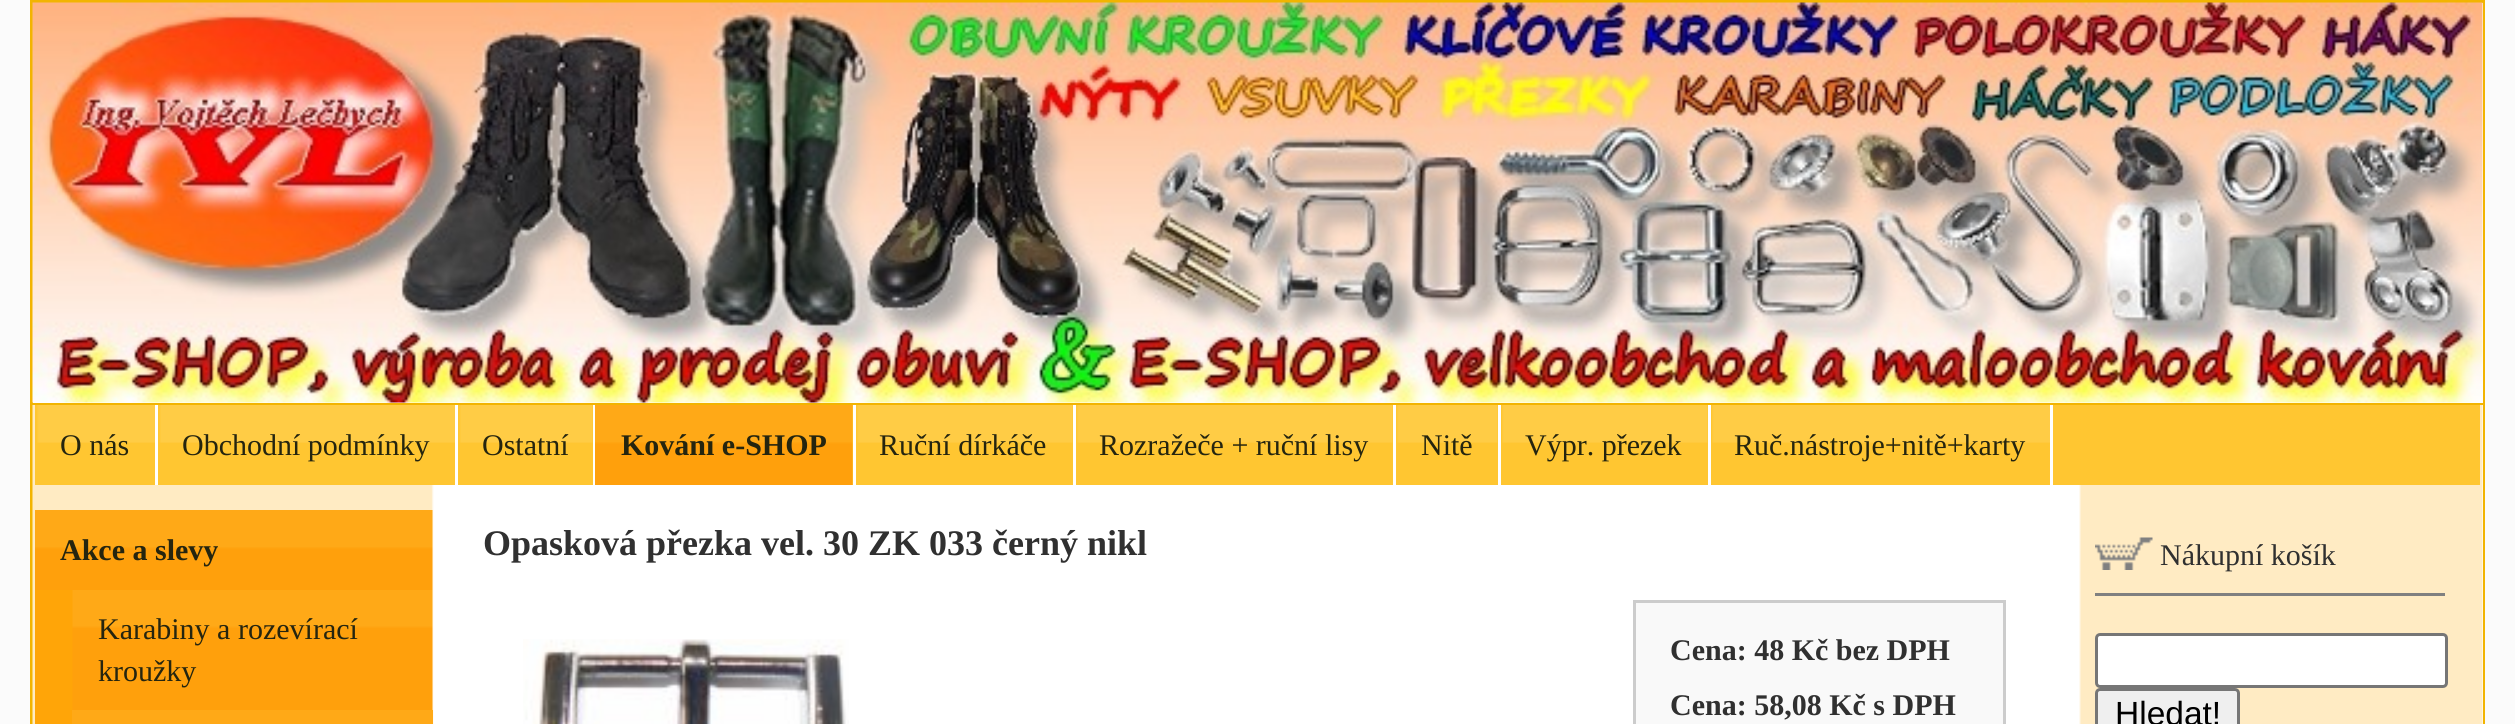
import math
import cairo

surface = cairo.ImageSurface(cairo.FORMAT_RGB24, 2515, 724)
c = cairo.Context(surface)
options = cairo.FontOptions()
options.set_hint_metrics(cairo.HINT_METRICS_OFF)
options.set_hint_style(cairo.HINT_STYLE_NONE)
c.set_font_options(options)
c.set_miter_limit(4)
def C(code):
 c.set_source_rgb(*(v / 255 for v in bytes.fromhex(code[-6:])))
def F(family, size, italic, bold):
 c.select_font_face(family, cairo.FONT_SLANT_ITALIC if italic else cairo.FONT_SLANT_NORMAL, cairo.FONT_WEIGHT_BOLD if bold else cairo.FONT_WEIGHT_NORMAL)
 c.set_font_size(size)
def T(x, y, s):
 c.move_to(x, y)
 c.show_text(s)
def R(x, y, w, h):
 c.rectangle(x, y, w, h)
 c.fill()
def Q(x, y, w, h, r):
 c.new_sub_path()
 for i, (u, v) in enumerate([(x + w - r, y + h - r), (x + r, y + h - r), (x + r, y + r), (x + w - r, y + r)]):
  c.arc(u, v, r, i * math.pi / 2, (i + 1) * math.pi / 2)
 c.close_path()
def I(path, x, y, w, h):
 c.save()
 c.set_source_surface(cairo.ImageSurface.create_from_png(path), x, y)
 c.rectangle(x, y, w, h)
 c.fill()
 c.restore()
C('fbfbfb')
c.paint()
c.rectangle(31.5,1.5,2452,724)
C('f2b401')
c.set_line_width(3)
c.stroke()
C('ffffff')
R(33,3,2450,400)
I('1.png',32,2,2451,401)
C('f2b401')
R(33,403,2450,2)
C('ffffff')
R(2482,405,1,319)
I('2.png',32,405,2451,319)
C('ffc631')
R(35,405,2445,80)
C('ffffff')
R(155,405,3,80)
I('3.png',37,405,118,38)
F('Liberation Serif',30,0,0)
C('25250f')
T(60,455,'O nás')
C('ffffff')
R(455,405,3,80)
I('4.png',159,405,296,38)
C('25250f')
T(182,455,'Obchodní podmínky')
C('ffffff')
R(593,405,2,80)
I('5.png',459,405,134,38)
C('25250f')
T(482,455,'Ostatní')
C('ffffff')
R(853,405,3,80)
I('6.png',595,405,258,80)
F('Liberation Serif',30,0,1)
C('25250f')
T(621,455,'Kování e-SHOP')
C('ffffff')
R(1073,405,3,80)
I('7.png',857,405,216,38)
F('Liberation Serif',30,0,0)
C('25250f')
T(879,455,'Ruční dírkáče')
C('ffffff')
R(1393,405,3,80)
I('8.png',1077,405,316,38)
C('25250f')
T(1099,455,'Rozražeče + ruční lisy')
C('ffffff')
R(1498,405,3,80)
I('9.png',1397,405,101,38)
C('25250f')
T(1421,455,'Nitě')
C('ffffff')
R(1708,405,3,80)
I('10.png',1502,405,206,38)
C('25250f')
T(1525,455,'Výpr. přezek')
C('ffffff')
R(2050,405,3,80)
I('11.png',1712,405,338,38)
C('25250f')
T(1734,455,'Ruč.nástroje+nitě+karty')
C('ffa508')
R(35,590,38,134)
I('12.png',35,510,398,80)
F('Liberation Serif',30,0,1)
C('25250f')
T(60,560,'Akce a slevy')
I('13.png',72,590,361,120)
F('Liberation Serif',30,0,0)
T(98,639,'Karabiny a rozevírací')
T(98,681,'kroužky')
C('ffa917')
R(72,710,361,14)
F('Liberation Serif',36,0,1)
C('303030')
T(483,555,'Opasková přezka vel. 30 ZK 033 černý nikl')
I('14.png',523,639,326,85)
C('cccccc')
R(1633,600,372,3)
R(2003,600,3,124)
R(1633,600,3,124)
C('f9f9f9')
R(1636,603,367,121)
F('Liberation Serif',30,0,1)
C('303030')
T(1670,660,'Cena: 48 Kč bez DPH')
T(1670,715,'Cena: 58,08 Kč s DPH')
C('808080')
R(2095,593,350,3)
I('15.png',2095,537,58,33)
F('Liberation Serif',30,0,0)
C('303030')
T(2160,565,'Nákupní košík')
C('ffffff')
Q(2096.5,634.5,350,52,3.5)
c.fill_preserve()
C('767676')
c.stroke()
C('efefef')
Q(2096.5,689.5,142,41,3.5)
c.fill_preserve()
C('767676')
c.stroke()
F('Liberation Sans',33.5,0,0)
C('000000')
T(2115,725,'Hledat!')
surface.write_to_png('o.png')
